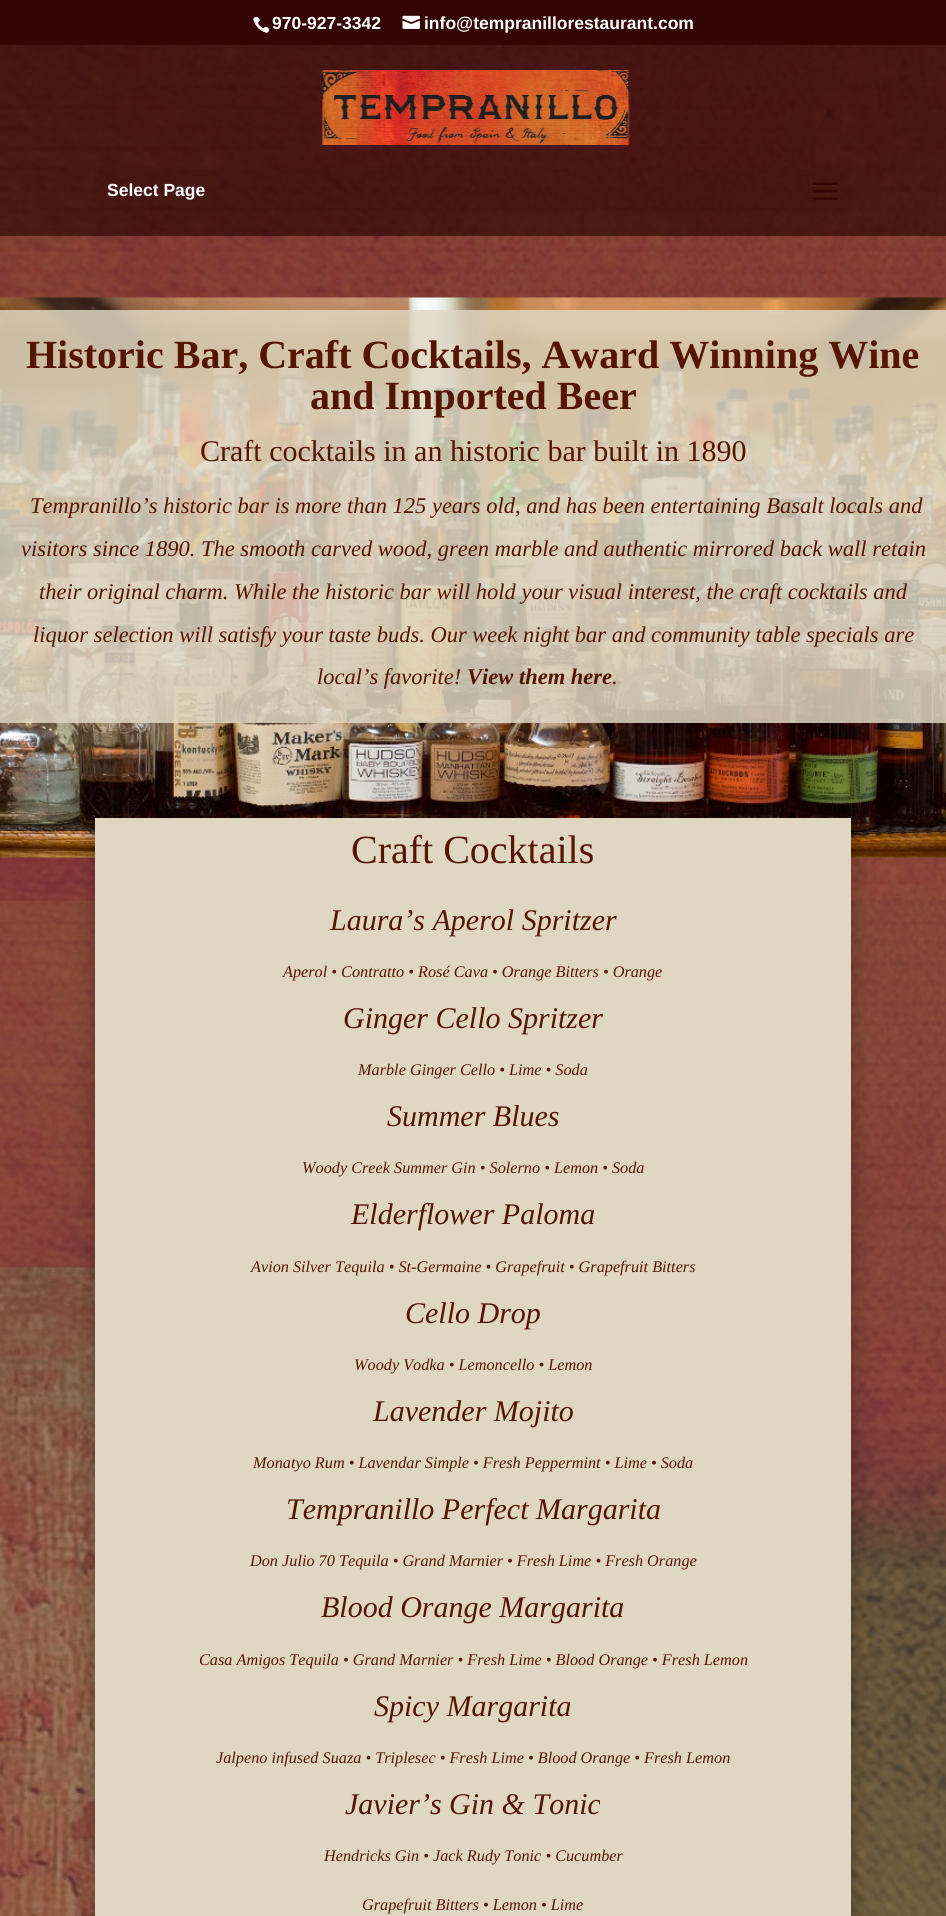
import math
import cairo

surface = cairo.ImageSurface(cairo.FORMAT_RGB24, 946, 1916)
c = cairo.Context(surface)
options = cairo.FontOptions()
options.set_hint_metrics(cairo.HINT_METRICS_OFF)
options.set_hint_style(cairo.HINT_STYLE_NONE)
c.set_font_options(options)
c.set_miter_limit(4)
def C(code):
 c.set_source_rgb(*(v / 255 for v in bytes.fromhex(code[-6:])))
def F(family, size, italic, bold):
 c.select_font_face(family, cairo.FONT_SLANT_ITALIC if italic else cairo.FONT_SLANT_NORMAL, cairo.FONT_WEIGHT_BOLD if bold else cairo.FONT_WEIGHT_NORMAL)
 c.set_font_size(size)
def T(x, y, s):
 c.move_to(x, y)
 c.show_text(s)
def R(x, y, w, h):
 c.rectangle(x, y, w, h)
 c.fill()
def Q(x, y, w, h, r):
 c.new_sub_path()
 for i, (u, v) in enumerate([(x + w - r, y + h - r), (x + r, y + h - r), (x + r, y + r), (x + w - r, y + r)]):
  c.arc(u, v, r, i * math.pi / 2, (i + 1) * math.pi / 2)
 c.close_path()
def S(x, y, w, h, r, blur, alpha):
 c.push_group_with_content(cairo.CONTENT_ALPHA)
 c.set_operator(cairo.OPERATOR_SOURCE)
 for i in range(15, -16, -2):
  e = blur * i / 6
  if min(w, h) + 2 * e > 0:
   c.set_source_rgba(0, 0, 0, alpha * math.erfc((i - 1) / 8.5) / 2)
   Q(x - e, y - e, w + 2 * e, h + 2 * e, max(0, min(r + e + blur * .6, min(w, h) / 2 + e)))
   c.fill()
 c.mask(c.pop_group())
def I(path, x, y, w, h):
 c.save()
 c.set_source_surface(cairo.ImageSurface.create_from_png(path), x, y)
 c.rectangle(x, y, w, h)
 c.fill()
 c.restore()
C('ffffff')
c.paint()
I('1.png',0,45,946,1871)
C('330505')
R(0,0,946,45)
I('2.png',253,16,17,17)
F('Liberation Sans',17.5,0,1)
C('ffffff')
T(272,29,'970-927-3342')
I('3.png',402,15,18,14)
T(424,29,'info@tempranillorestaurant.com')
c.set_source_rgba(0.157,0.016,0,0.63)
R(0,45,946,191)
I('4.png',322,70,308,75)
c.set_source_rgba(0,0,0,0.05)
R(95,170,756,41)
C('ffffff')
T(107,196,'Select Page')
I('5.png',812,182,26,18)
I('6.png',0,297,946,561)
c.set_source_rgba(0.878,0.843,0.765,0.84)
R(0,310,946,413)
F('Liberation Serif',40,0,1)
C('561500')
T(26,368,'Historic Bar, Craft Cocktails, Award Winning Wine')
T(310,409,'and Imported Beer')
F('Liberation Serif',30,0,0)
T(200,461,'Craft cocktails in an historic bar built in 1890')
F('Liberation Serif',22.5,1,0)
T(30,513,'Tempranillo’s historic bar is more than 125 years old, and has been entertaining Basalt locals and')
T(21,556,'visitors since 1890. The smooth carved wood, green marble and authentic mirrored back wall retain')
T(39,599,'their original charm. While the historic bar will hold your visual interest, the craft cocktails and')
T(33,642,'liquor selection will satisfy your taste buds. Our week night bar and community table specials are')
T(317,684,'local’s favorite!')
F('Liberation Serif',22.5,1,1)
T(467,684,'View them here')
F('Liberation Serif',22.5,1,0)
T(612,684,'.')
C('000000')
S(95,820,756,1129,0,11,.3)
C('e0d7c3')
R(95,818,756,1098)
F('Liberation Serif',40,0,0)
C('561500')
T(351,863,'Craft Cocktails')
F('Liberation Serif',30,1,0)
T(330,930,'Laura’s Aperol Spritzer')
F('Liberation Serif',16.25,1,0)
T(283,977,'Aperol • Contratto • Rosé Cava • Orange Bitters • Orange')
F('Liberation Serif',30,1,0)
T(343,1028,'Ginger Cello Spritzer')
F('Liberation Serif',16.25,1,0)
T(358,1075,'Marble Ginger Cello • Lime • Soda')
F('Liberation Serif',30,1,0)
T(387,1126,'Summer Blues')
F('Liberation Serif',16.25,1,0)
T(302,1173,'Woody Creek Summer Gin • Solerno • Lemon • Soda')
F('Liberation Serif',30,1,0)
T(351,1224,'Elderflower Paloma')
F('Liberation Serif',16.25,1,0)
T(251,1272,'Avion Silver Tequila • St-Germaine • Grapefruit • Grapefruit Bitters')
F('Liberation Serif',30,1,0)
T(405,1323,'Cello Drop')
F('Liberation Serif',16.25,1,0)
T(354,1370,'Woody Vodka • Lemoncello • Lemon')
F('Liberation Serif',30,1,0)
T(373,1421,'Lavender Mojito')
F('Liberation Serif',16.25,1,0)
T(253,1468,'Monatyo Rum • Lavendar Simple • Fresh Peppermint • Lime • Soda')
F('Liberation Serif',30,1,0)
T(286,1519,'Tempranillo Perfect Margarita')
F('Liberation Serif',16.25,1,0)
T(250,1566,'Don Julio 70 Tequila • Grand Marnier • Fresh Lime • Fresh Orange')
F('Liberation Serif',30,1,0)
T(321,1617,'Blood Orange Margarita')
F('Liberation Serif',16.25,1,0)
T(199,1665,'Casa Amigos Tequila • Grand Marnier • Fresh Lime • Blood Orange • Fresh Lemon')
F('Liberation Serif',30,1,0)
T(374,1716,'Spicy Margarita')
F('Liberation Serif',16.25,1,0)
T(216,1763,'Jalpeno infused Suaza • Triplesec • Fresh Lime • Blood Orange • Fresh Lemon')
F('Liberation Serif',30,1,0)
T(345,1814,'Javier’s Gin & Tonic')
F('Liberation Serif',16.25,1,0)
T(324,1861,'Hendricks Gin • Jack Rudy Tonic • Cucumber')
T(362,1910,'Grapefruit Bitters • Lemon • Lime')
surface.write_to_png('o.png')
